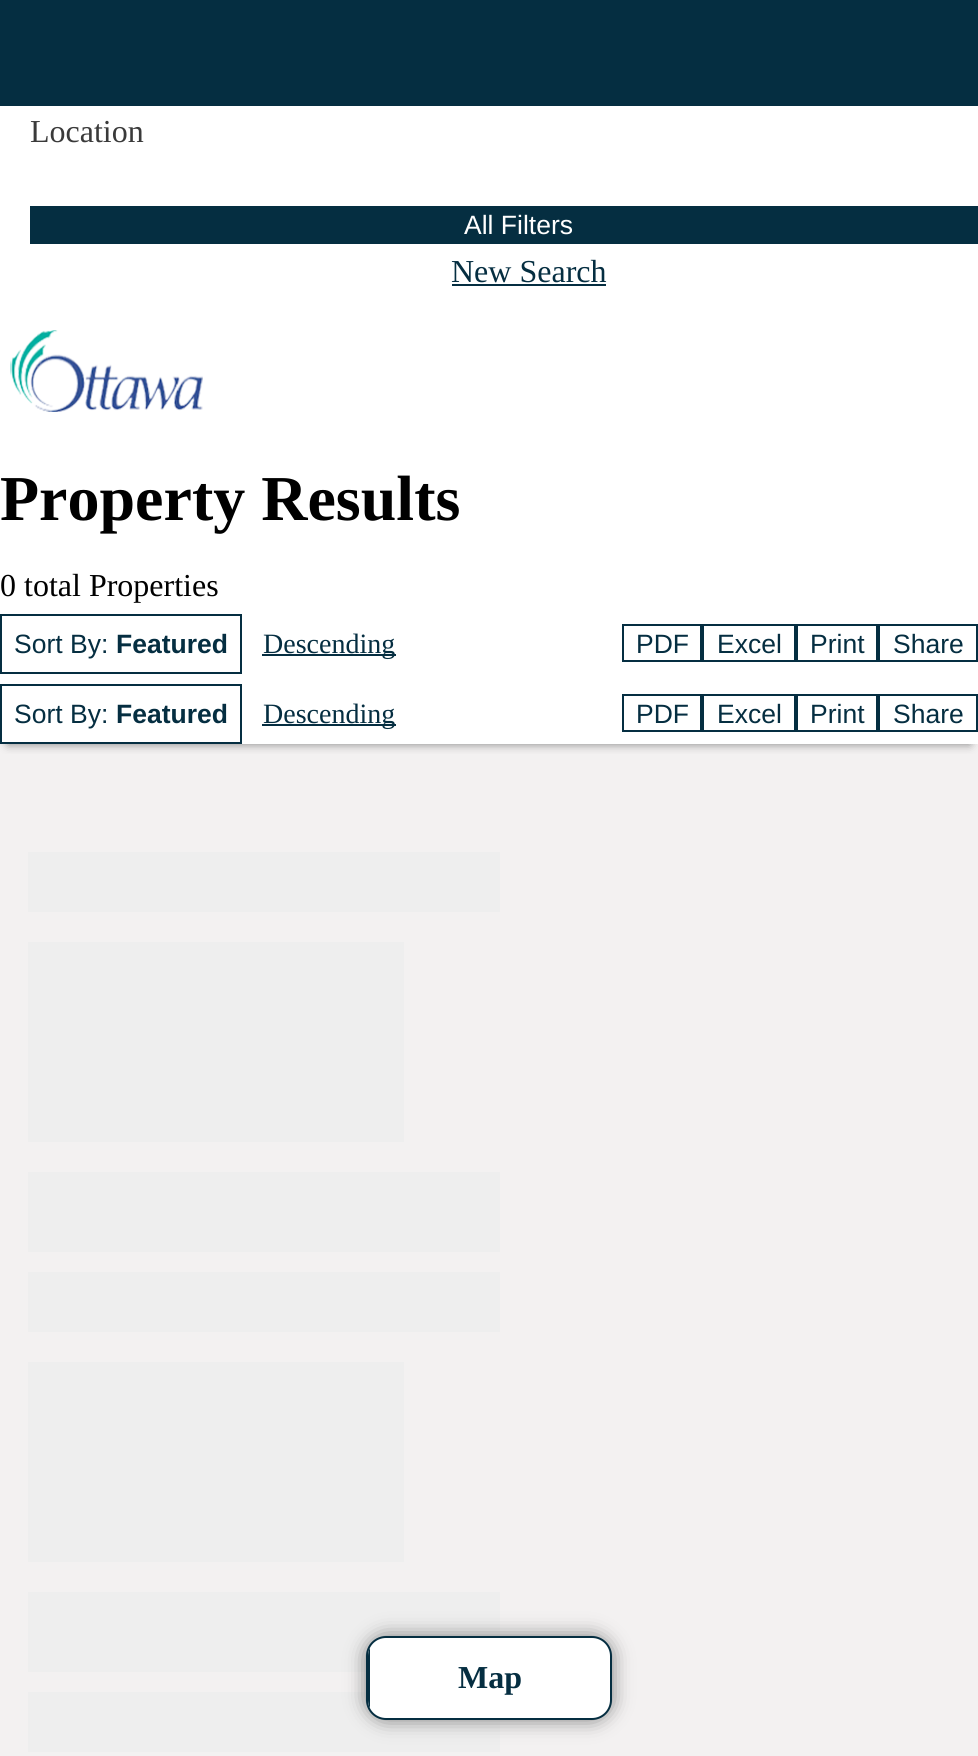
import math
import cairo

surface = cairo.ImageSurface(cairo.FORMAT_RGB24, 978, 1756)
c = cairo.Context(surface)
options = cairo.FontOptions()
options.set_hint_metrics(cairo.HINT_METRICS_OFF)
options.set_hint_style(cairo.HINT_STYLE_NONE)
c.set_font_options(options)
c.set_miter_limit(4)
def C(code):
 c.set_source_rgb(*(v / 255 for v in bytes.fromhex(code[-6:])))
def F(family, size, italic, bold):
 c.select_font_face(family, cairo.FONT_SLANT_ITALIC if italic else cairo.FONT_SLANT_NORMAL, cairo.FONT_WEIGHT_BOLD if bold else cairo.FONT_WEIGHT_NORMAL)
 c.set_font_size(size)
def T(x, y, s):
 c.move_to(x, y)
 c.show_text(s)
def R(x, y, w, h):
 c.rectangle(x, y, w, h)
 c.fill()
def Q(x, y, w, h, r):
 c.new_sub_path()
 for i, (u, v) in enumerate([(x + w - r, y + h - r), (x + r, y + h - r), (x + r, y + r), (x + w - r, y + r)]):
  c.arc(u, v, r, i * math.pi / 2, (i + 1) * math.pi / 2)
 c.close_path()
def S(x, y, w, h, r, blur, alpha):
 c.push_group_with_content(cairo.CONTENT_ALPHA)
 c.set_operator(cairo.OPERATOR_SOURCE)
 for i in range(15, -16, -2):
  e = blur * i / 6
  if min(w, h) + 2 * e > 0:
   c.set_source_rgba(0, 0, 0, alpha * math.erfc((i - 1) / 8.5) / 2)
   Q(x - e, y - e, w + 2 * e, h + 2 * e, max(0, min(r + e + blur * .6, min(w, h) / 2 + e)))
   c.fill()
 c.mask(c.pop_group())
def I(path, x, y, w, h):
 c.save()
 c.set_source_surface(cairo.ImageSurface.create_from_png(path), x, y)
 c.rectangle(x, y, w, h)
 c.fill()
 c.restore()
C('ffffff')
c.paint()
C('052e41')
R(0,0,978,106)
F('Liberation Serif',32,0,0)
C('3a3a3a')
T(30,142,'Location')
C('052e41')
R(30,206,948,38)
F('Liberation Sans',26.5,0,0)
C('ffffff')
T(464,234,'All Filters')
F('Liberation Serif',32,0,0)
C('052e41')
T(451,282,'New Search')
R(452,284,154,2)
C('f3f1f1')
R(0,744,978,1012)
c.save()
c.rectangle(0,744,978,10)
c.clip()
C('808080')
S(8,346,962,398,0,5,1)
c.restore()
I('1.png',10,330,193,82)
F('Liberation Serif',64,0,1)
C('000000')
T(0,520,'Property Results')
F('Liberation Serif',32,0,0)
T(0,596,'0 total Properties')
c.rectangle(1,615,240,58)
C('052e41')
c.stroke()
F('Liberation Sans',26.5,0,0)
T(14,653,'Sort By:')
F('Liberation Sans',26.5,0,1)
T(116,653,'Featured')
R(262,654,134,2)
F('Liberation Serif',28,0,0)
T(263,653,'Descending')
c.rectangle(623,625,78,36)
c.stroke()
F('Liberation Sans',26.5,0,0)
T(636,653,'PDF')
c.rectangle(703,625,92,36)
c.stroke()
T(717,653,'Excel')
c.rectangle(797,625,80,36)
c.stroke()
T(810,653,'Print')
c.rectangle(879,625,98,36)
c.stroke()
T(893,653,'Share')
c.rectangle(1,685,240,58)
c.stroke()
T(14,723,'Sort By:')
F('Liberation Sans',26.5,0,1)
T(116,723,'Featured')
R(262,724,134,2)
F('Liberation Serif',28,0,0)
T(263,723,'Descending')
c.rectangle(623,695,78,36)
c.stroke()
F('Liberation Sans',26.5,0,0)
T(636,723,'PDF')
c.rectangle(703,695,92,36)
c.stroke()
T(717,723,'Excel')
c.rectangle(797,695,80,36)
c.stroke()
T(810,723,'Print')
c.rectangle(879,695,98,36)
c.stroke()
T(893,723,'Share')
C('eeeeee')
R(28,852,472,60)
R(28,942,376,200)
R(28,1172,472,80)
R(28,1272,472,60)
R(28,1362,376,200)
R(28,1592,472,80)
R(28,1692,472,60)
C('808080')
S(366,1636,246,84,20,10,1)
C('ffffff')
Q(367,1637,244,82,19)
c.fill_preserve()
C('052e41')
c.stroke()
c.save()
Q(368,1638,242,80,18)
c.clip()
R(368,1648,2,60)
c.restore()
F('Liberation Serif',32,0,1)
T(458,1688,'Map')
surface.write_to_png('o.png')
